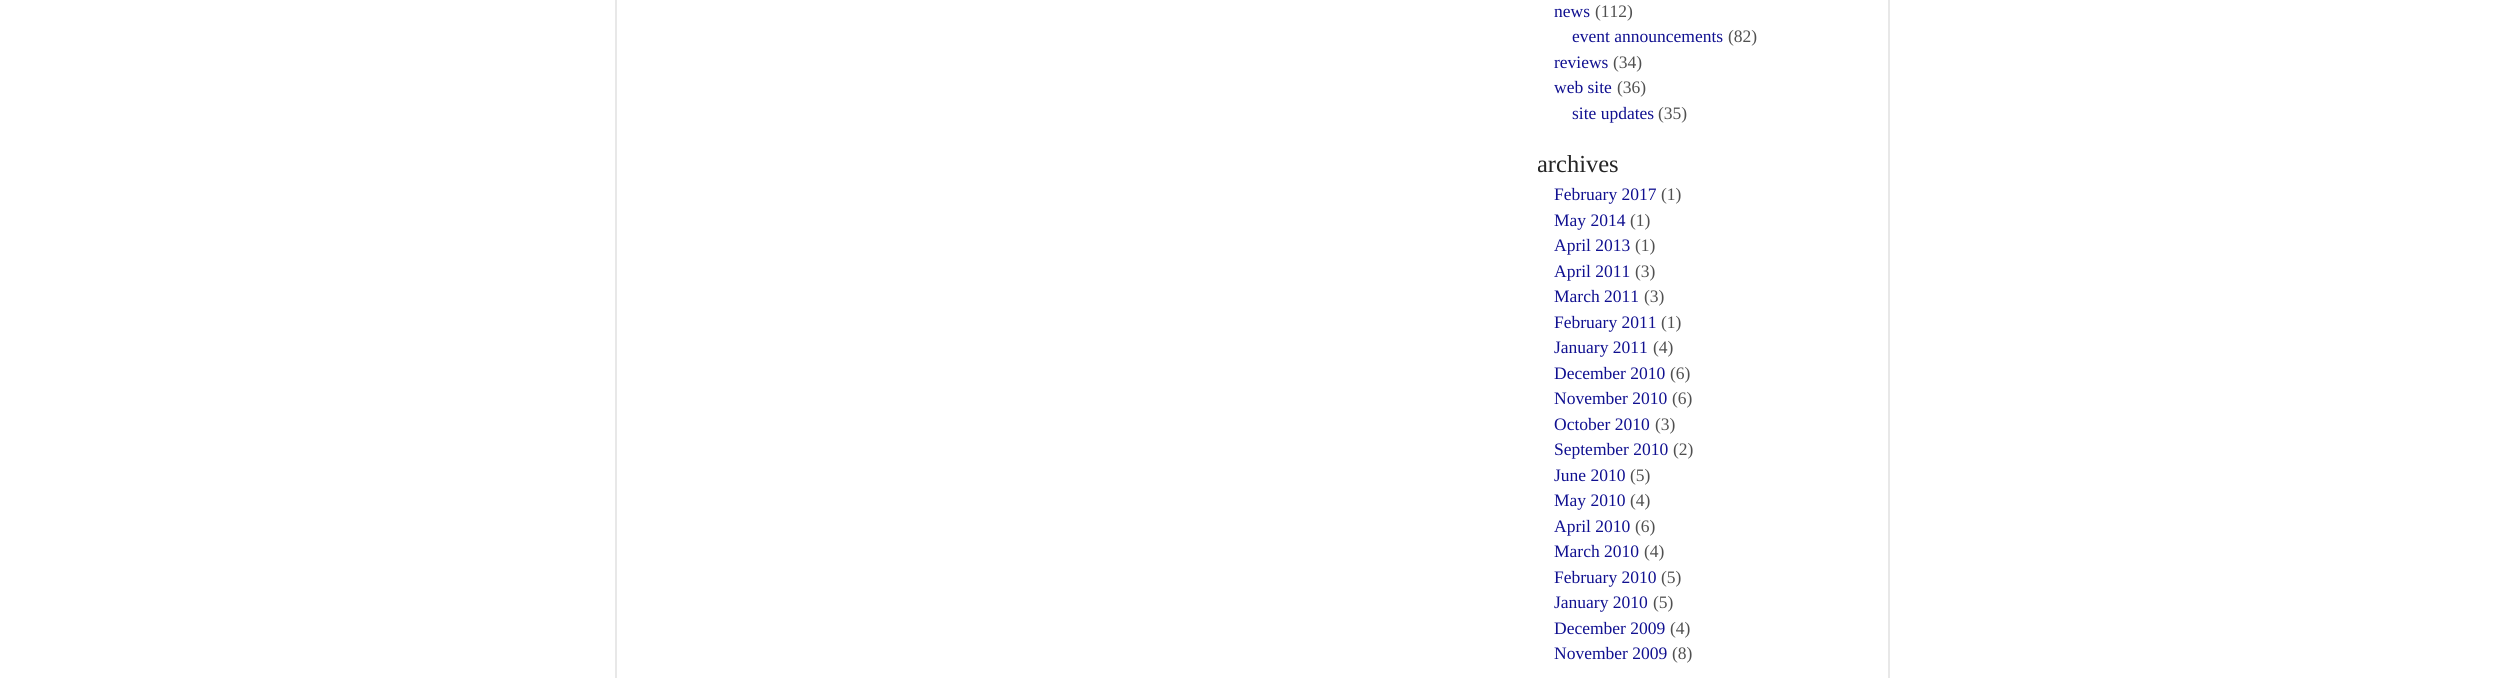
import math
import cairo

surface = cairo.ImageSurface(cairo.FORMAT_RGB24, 2503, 678)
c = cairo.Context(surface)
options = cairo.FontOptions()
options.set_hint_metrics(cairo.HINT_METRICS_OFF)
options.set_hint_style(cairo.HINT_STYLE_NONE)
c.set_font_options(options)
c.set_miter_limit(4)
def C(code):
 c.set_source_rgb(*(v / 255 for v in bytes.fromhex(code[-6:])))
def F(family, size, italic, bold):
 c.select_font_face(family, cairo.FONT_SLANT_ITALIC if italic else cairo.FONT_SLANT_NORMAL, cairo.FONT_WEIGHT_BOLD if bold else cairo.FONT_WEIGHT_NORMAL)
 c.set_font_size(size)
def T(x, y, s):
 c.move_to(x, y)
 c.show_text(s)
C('ffffff')
c.paint()
c.rectangle(616,-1,1273,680)
C('e8e8e8')
c.stroke()
F('Liberation Serif',17.5,0,0)
C('101090')
T(1554,17,'news')
C('505050')
T(1595,17,'(112)')
C('101090')
T(1572,42,'event announcements')
C('505050')
T(1728,42,'(82)')
C('101090')
T(1554,68,'reviews')
C('505050')
T(1613,68,'(34)')
C('101090')
T(1554,93,'web site')
C('505050')
T(1617,93,'(36)')
C('101090')
T(1572,119,'site updates')
C('505050')
T(1658,119,'(35)')
c.save()
c.rectangle(1538,0,315,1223)
c.clip()
F('Liberation Serif',24.5,0,0)
C('252525')
T(1537,172,'archives')
c.restore()
C('101090')
T(1554,200,'February 2017')
C('505050')
T(1661,200,'(1)')
C('101090')
T(1554,226,'May 2014')
C('505050')
T(1630,226,'(1)')
C('101090')
T(1554,251,'April 2013')
C('505050')
T(1635,251,'(1)')
C('101090')
T(1554,277,'April 2011')
C('505050')
T(1635,277,'(3)')
C('101090')
T(1554,302,'March 2011')
C('505050')
T(1644,302,'(3)')
C('101090')
T(1554,328,'February 2011')
C('505050')
T(1661,328,'(1)')
C('101090')
T(1554,353,'January 2011')
C('505050')
T(1653,353,'(4)')
C('101090')
T(1554,379,'December 2010')
C('505050')
T(1670,379,'(6)')
C('101090')
T(1554,404,'November 2010')
C('505050')
T(1672,404,'(6)')
C('101090')
T(1554,430,'October 2010')
C('505050')
T(1655,430,'(3)')
C('101090')
T(1554,455,'September 2010')
C('505050')
T(1673,455,'(2)')
C('101090')
T(1554,481,'June 2010')
C('505050')
T(1630,481,'(5)')
C('101090')
T(1554,506,'May 2010')
C('505050')
T(1630,506,'(4)')
C('101090')
T(1554,532,'April 2010')
C('505050')
T(1635,532,'(6)')
C('101090')
T(1554,557,'March 2010')
C('505050')
T(1644,557,'(4)')
C('101090')
T(1554,583,'February 2010')
C('505050')
T(1661,583,'(5)')
C('101090')
T(1554,608,'January 2010')
C('505050')
T(1653,608,'(5)')
C('101090')
T(1554,634,'December 2009')
C('505050')
T(1670,634,'(4)')
C('101090')
T(1554,659,'November 2009')
C('505050')
T(1672,659,'(8)')
surface.write_to_png('o.png')
